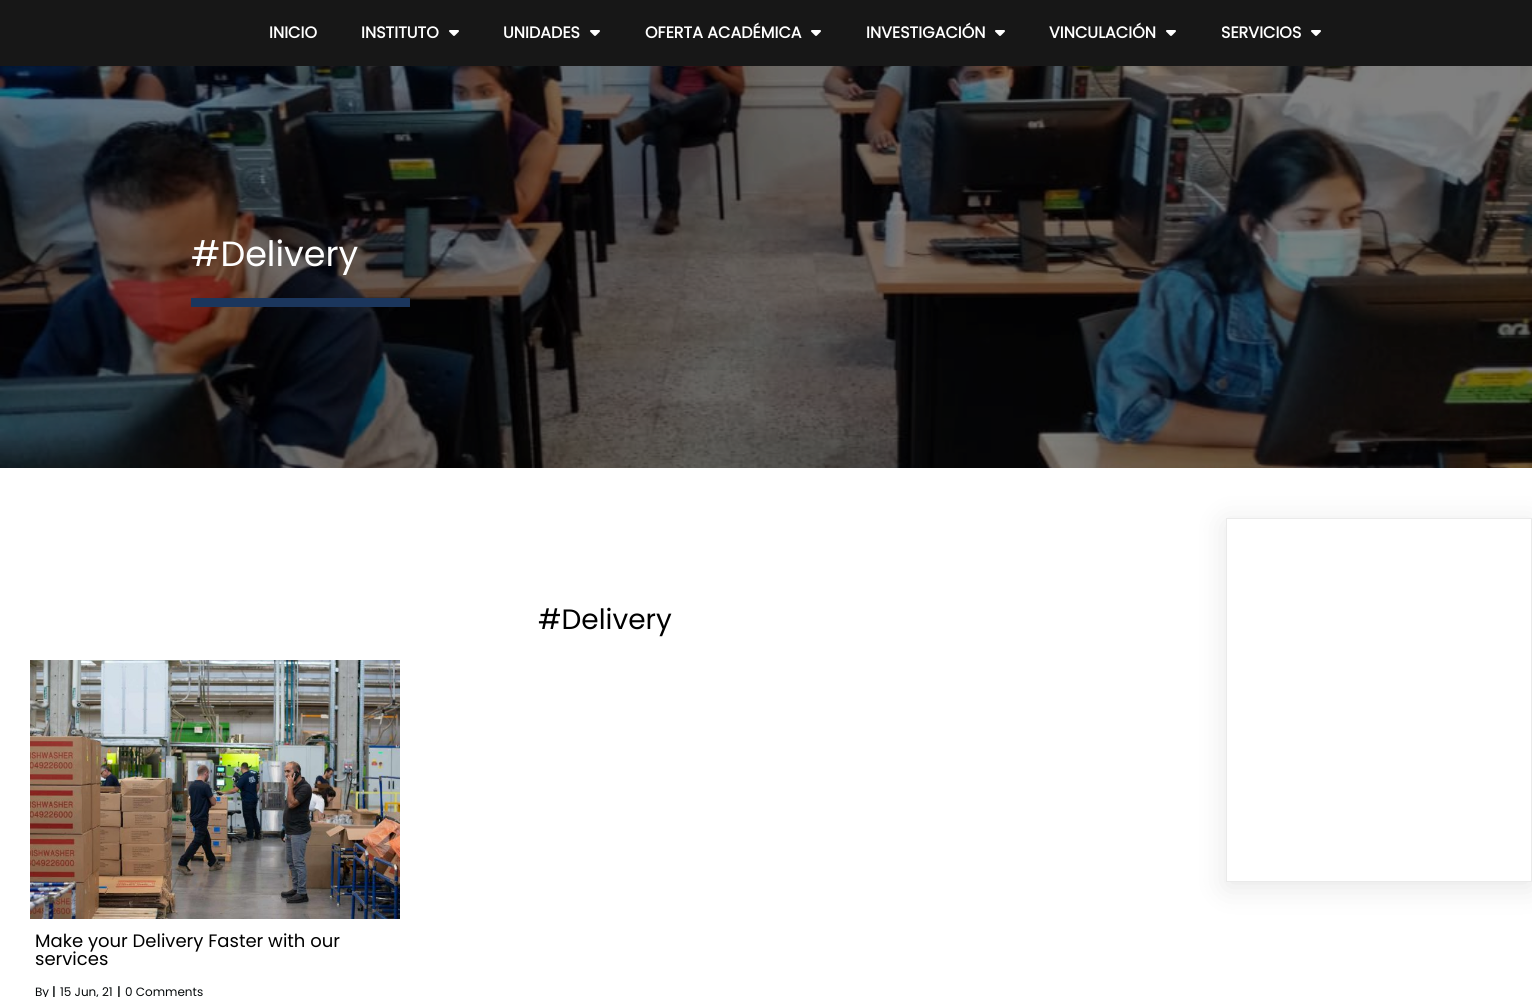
import math
import cairo

surface = cairo.ImageSurface(cairo.FORMAT_RGB24, 1532, 997)
c = cairo.Context(surface)
options = cairo.FontOptions()
options.set_hint_metrics(cairo.HINT_METRICS_OFF)
options.set_hint_style(cairo.HINT_STYLE_NONE)
c.set_font_options(options)
c.set_miter_limit(4)
def C(code):
 c.set_source_rgb(*(v / 255 for v in bytes.fromhex(code[-6:])))
def F(family, size, italic, bold):
 c.select_font_face(family, cairo.FONT_SLANT_ITALIC if italic else cairo.FONT_SLANT_NORMAL, cairo.FONT_WEIGHT_BOLD if bold else cairo.FONT_WEIGHT_NORMAL)
 c.set_font_size(size)
def T(x, y, s):
 c.move_to(x, y)
 c.show_text(s)
def R(x, y, w, h):
 c.rectangle(x, y, w, h)
 c.fill()
def Q(x, y, w, h, r):
 c.new_sub_path()
 for i, (u, v) in enumerate([(x + w - r, y + h - r), (x + r, y + h - r), (x + r, y + r), (x + w - r, y + r)]):
  c.arc(u, v, r, i * math.pi / 2, (i + 1) * math.pi / 2)
 c.close_path()
def S(x, y, w, h, r, blur, alpha):
 c.push_group_with_content(cairo.CONTENT_ALPHA)
 c.set_operator(cairo.OPERATOR_SOURCE)
 for i in range(15, -16, -2):
  e = blur * i / 6
  if min(w, h) + 2 * e > 0:
   c.set_source_rgba(0, 0, 0, alpha * math.erfc((i - 1) / 8.5) / 2)
   Q(x - e, y - e, w + 2 * e, h + 2 * e, max(0, min(r + e + blur * .6, min(w, h) / 2 + e)))
   c.fill()
 c.mask(c.pop_group())
def I(path, x, y, w, h):
 c.save()
 c.set_source_surface(cairo.ImageSurface.create_from_png(path), x, y)
 c.rectangle(x, y, w, h)
 c.fill()
 c.restore()
C('ffffff')
c.paint()
C('171717')
R(0,0,1532,66)
F('Poppins',16,0,1)
C('ffffff')
T(269,38,'INICIO')
T(361,38,'INSTITUTO')
I('1.png',449,30,10,6)
T(503,38,'UNIDADES')
I('1.png',590,30,10,6)
T(645,38,'OFERTA ACADÉMICA')
I('1.png',811,30,10,6)
T(866,38,'INVESTIGACIÓN')
I('1.png',995,30,10,6)
T(1049,38,'VINCULACIÓN')
I('1.png',1166,30,10,6)
T(1221,38,'SERVICIOS')
I('1.png',1311,30,10,6)
I('2.png',0,66,1532,402)
F('Poppins',35,0,0)
T(191,266,'#Delivery')
C('1b365d')
R(191,298,219,9)
F('Poppins',28,0,0)
C('000000')
T(538,629,'#Delivery')
I('3.png',30,660,370,259)
F('Poppins',18,0,0)
T(35,947,'Make your Delivery Faster with our')
T(35,965,'services')
F('Poppins',12,0,0)
C('05090a')
T(35,996,'By')
F('Poppins',12,0,1)
T(52,996,'|')
F('Poppins',12,0,0)
T(60,996,'15 Jun, 21')
F('Poppins',12,0,1)
T(117,996,'|')
F('Poppins',12,0,0)
T(125,996,'0 Comments')
c.save()
c.set_fill_rule(cairo.FILL_RULE_EVEN_ODD)
c.new_path()
c.move_to(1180,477)
c.line_to(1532,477)
c.line_to(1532,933)
c.line_to(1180,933)
c.close_path()
c.move_to(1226,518)
c.line_to(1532,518)
c.line_to(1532,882)
c.line_to(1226,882)
c.close_path()
c.clip()
C('000000')
S(1226,523,306,364,0,15,.1)
c.restore()
c.rectangle(1226.5,518.5,305,363)
C('eaeaea')
c.set_line_width(1)
c.stroke()
surface.write_to_png('o.png')
